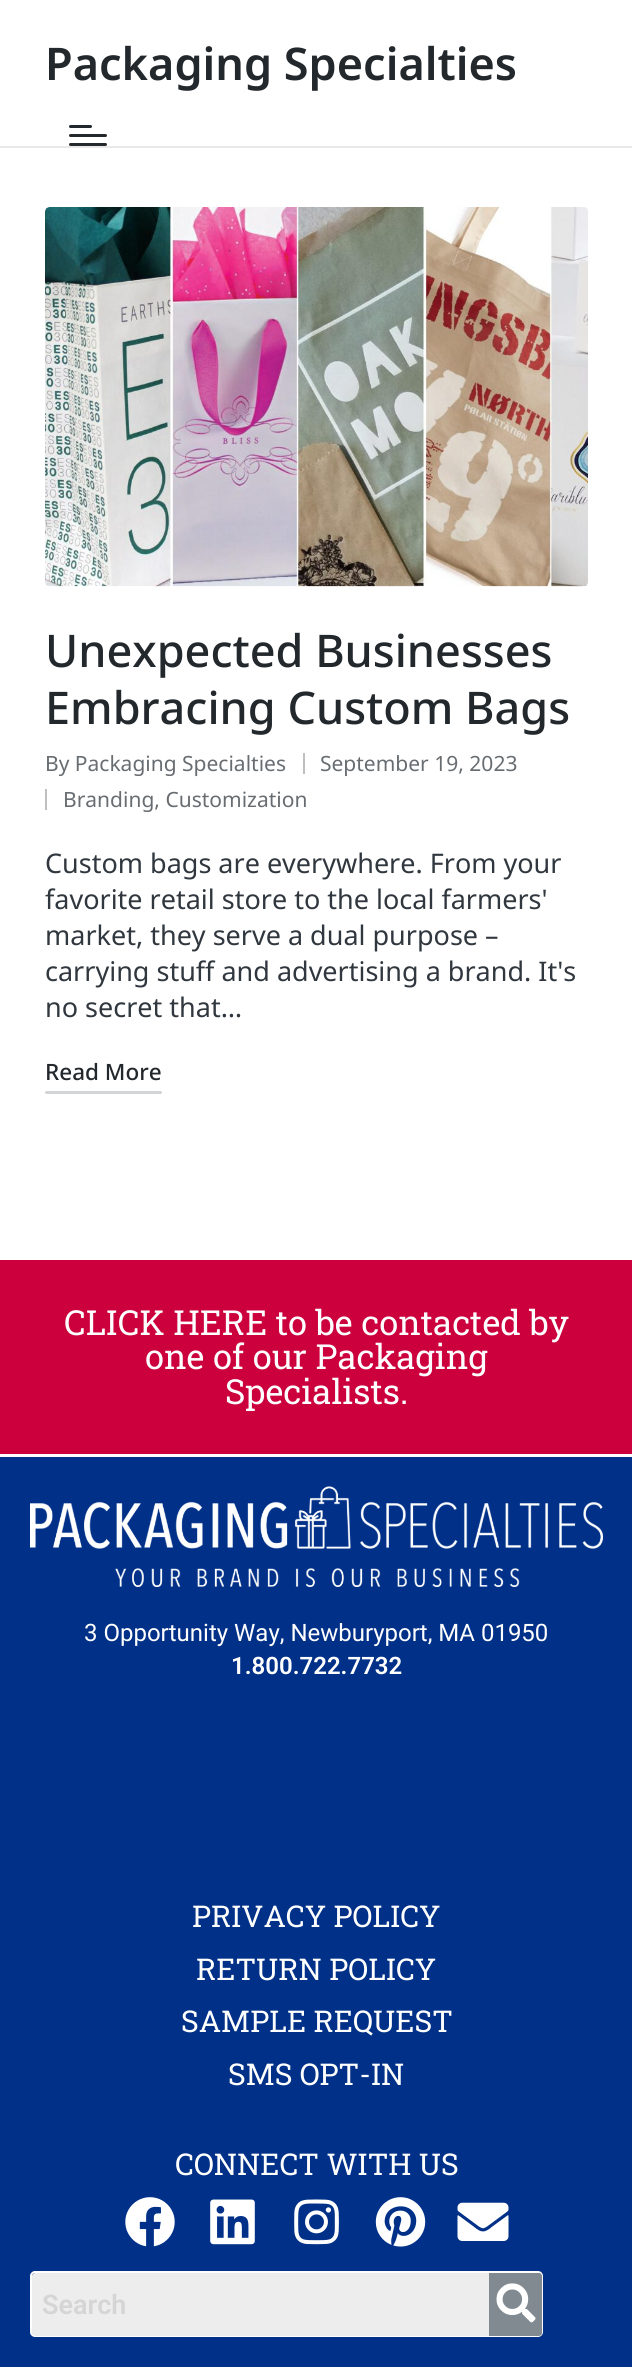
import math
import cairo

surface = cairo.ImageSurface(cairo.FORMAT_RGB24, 632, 2377)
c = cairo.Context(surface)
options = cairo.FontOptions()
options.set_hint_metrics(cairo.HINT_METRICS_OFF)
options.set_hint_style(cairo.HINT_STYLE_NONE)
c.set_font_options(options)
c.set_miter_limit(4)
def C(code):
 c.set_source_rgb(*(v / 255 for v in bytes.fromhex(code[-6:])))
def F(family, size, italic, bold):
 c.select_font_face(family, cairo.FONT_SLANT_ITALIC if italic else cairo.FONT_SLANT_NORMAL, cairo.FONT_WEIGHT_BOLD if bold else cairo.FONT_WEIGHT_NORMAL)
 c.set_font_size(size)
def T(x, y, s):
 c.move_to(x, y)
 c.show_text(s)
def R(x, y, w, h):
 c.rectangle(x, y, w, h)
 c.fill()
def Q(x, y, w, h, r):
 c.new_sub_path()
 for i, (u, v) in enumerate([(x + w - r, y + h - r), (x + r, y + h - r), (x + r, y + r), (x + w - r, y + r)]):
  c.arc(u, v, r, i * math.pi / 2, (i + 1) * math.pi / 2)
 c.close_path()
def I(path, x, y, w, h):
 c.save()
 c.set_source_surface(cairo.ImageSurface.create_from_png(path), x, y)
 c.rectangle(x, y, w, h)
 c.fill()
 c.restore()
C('ffffff')
c.paint()
C('e9e9e9')
R(0,146,632,2)
F('Noto Sans SemiBold',45,0,0)
C('23282d')
T(45,80,'Packaging Specialties')
Q(69,134,38,3,1.5)
c.fill()
Q(69,125,23,3,1.5)
c.fill()
Q(69,143,38,3,1.5)
c.fill()
I('1.png',45,207,543,380)
F('Noto Sans Medium',45,0,0)
T(45,667,'Unexpected Businesses')
T(45,724,'Embracing Custom Bags')
F('Noto Sans',21,0,0)
C('686d72')
T(45,771,'By Packaging Specialties')
C('bfbfbf')
R(303,753,2,21)
C('686d72')
T(320,771,'September 19, 2023')
C('bfbfbf')
R(45,789,2,21)
C('686d72')
T(63,807,'Branding, Customization')
F('Noto Sans',27,0,0)
C('30373e')
T(45,873,'Custom bags are everywhere. From your')
T(45,909,'favorite retail store to the local farmers\'')
T(45,945,'market, they serve a dual purpose –')
T(45,981,'carrying stuff and advertising a brand. It\'s')
T(45,1017,'no secret that…')
F('Noto Sans Medium',22.5,0,0)
C('23282d')
T(45,1080,'Read More')
C('d3d4d5')
Q(45,1091,117,3,1.5)
c.fill()
C('cb003d')
R(0,1260,632,194)
F('Roboto Slab',34.5,0,0)
C('ffffff')
T(64,1335,'CLICK HERE to be contacted by')
T(145,1369,'one of our Packaging')
T(225,1404,'Specialists.')
C('003087')
R(0,1457,632,910)
I('2.png',30,1486,573,101)
F('Roboto',24,0,0)
C('ffffff')
T(84,1641,'3 Opportunity Way, Newburyport, MA 01950')
F('Roboto SemiBold',24,0,0)
T(231,1674,'1.800.722.7732')
F('Roboto Slab',30,0,0)
T(192,1927,'PRIVACY POLICY')
T(196,1980,'RETURN POLICY')
T(181,2032,'SAMPLE REQUEST')
T(228,2085,'SMS OPT-IN')
T(175,2175,'CONNECT WITH US')
I('3.png',125,2197,50,50)
I('4.png',210,2199,45,46)
I('5.png',294,2199,45,46)
I('6.png',375,2197,51,50)
I('7.png',457,2202,52,39)
Q(31,2272,511,64,4)
c.stroke()
C('ededed')
c.new_path()
c.move_to(35,2273)
c.line_to(489,2273)
c.line_to(489,2336)
c.line_to(35,2336)
c.curve_to(33.5,2336,32,2334.5,32,2333)
c.line_to(32,2276)
c.curve_to(32,2274.5,33.5,2273,35,2273)
c.close_path()
c.fill()
F('Roboto SemiBold',27,0,0)
C('d5d5d5')
T(42,2314,'Search')
C('818a91')
c.new_path()
c.move_to(489,2273)
c.line_to(539,2273)
c.curve_to(540.5,2273,542,2274.5,542,2276)
c.line_to(542,2333)
c.curve_to(542,2334.5,540.5,2336,539,2336)
c.line_to(489,2336)
c.close_path()
c.fill()
I('8.png',496,2283,40,40)
surface.write_to_png('o.png')
